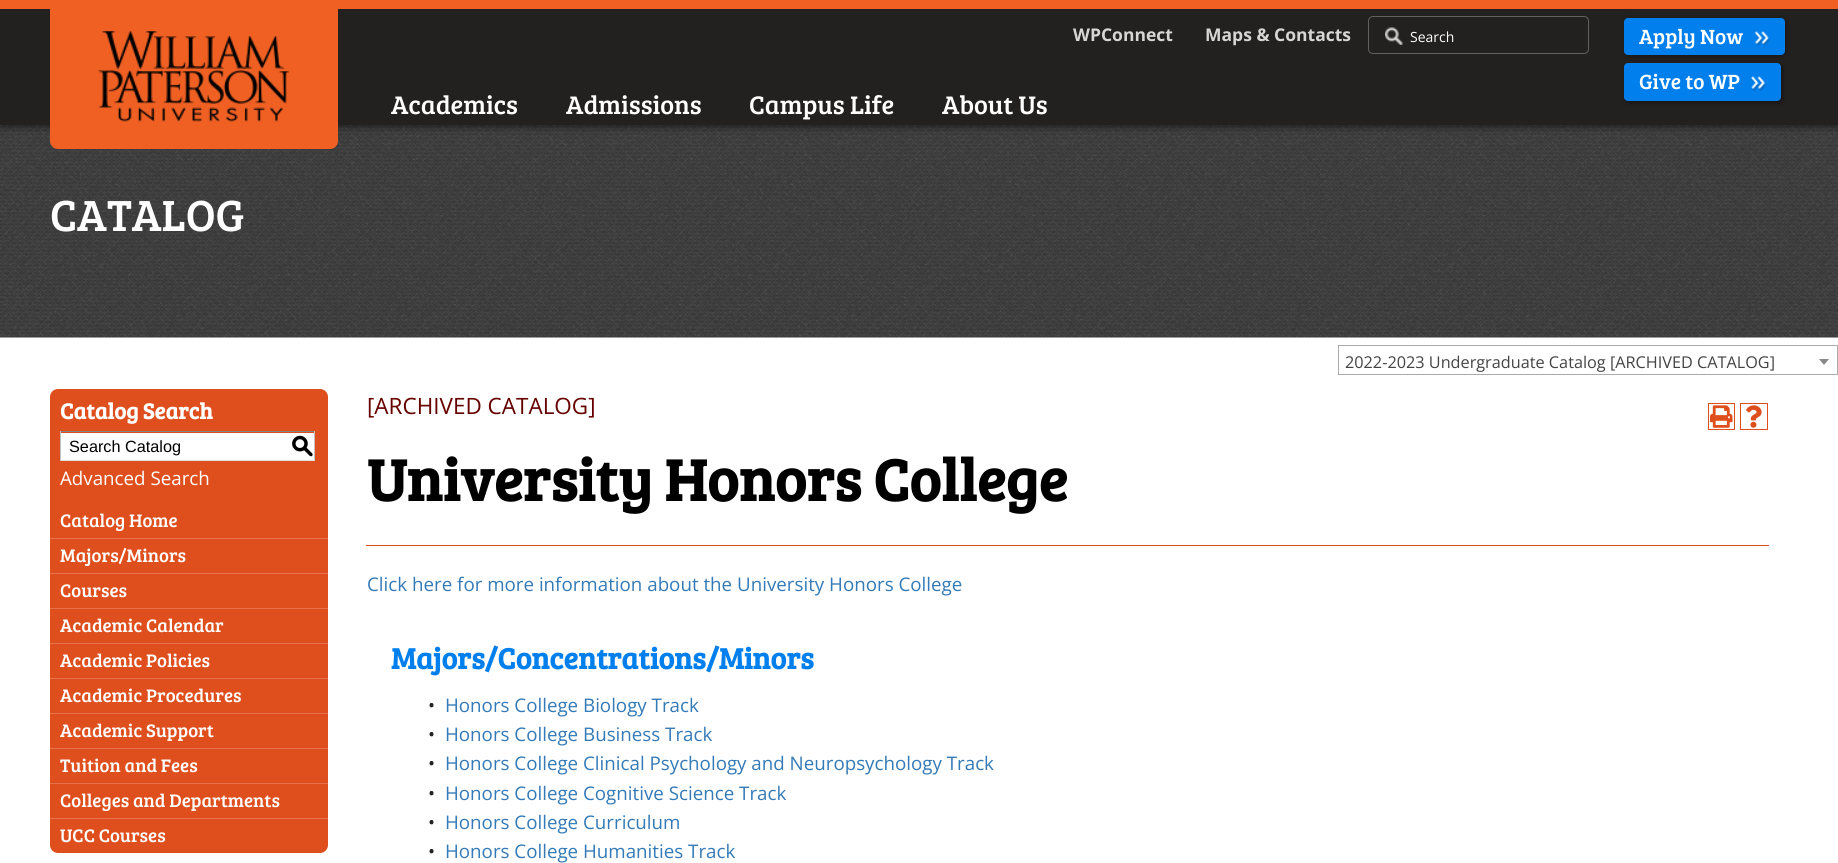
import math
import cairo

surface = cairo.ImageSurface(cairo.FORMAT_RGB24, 1838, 863)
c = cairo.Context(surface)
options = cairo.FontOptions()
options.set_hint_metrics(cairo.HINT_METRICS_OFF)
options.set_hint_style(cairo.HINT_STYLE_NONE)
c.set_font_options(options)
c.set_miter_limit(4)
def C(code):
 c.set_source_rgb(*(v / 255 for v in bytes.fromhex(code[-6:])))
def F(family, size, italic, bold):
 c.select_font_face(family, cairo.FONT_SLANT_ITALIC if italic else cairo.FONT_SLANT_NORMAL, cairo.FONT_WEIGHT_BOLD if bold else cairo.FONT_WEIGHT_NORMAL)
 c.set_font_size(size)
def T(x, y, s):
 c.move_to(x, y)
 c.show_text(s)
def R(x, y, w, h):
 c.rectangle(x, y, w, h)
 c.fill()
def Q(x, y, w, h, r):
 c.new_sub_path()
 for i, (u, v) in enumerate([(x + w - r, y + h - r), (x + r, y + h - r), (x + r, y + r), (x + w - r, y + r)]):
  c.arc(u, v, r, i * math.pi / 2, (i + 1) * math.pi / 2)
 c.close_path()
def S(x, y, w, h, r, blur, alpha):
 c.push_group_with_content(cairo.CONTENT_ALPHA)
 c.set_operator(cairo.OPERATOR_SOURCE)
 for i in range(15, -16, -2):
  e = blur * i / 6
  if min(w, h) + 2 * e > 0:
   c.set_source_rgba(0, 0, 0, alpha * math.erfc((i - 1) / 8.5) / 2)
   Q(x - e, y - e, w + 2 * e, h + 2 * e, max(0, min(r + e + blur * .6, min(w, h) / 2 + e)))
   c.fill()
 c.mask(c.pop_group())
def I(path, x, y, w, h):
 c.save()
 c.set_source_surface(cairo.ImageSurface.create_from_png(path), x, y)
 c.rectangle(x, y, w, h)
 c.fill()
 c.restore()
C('ffffff')
c.paint()
I('5.png',0,125,1838,213)
C('0a0a0a')
S(1,1,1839,125,0,4,.75)
C('22211f')
R(0,9,1838,116)
C('f06023')
R(0,0,1838,9)
c.new_path()
c.move_to(50,9)
c.line_to(338,9)
c.line_to(338,141)
c.curve_to(338,145.5,334.5,149,330,149)
c.line_to(58,149)
c.curve_to(53.5,149,50,145.5,50,141)
c.close_path()
c.fill()
I('1.png',98,31,191,91)
F('Open Sans',17.5,0,1)
C('d6d6d6')
T(1073,41,'WPConnect')
T(1205,41,'Maps & Contacts')
Q(1368.5,16.5,220,37,4.5)
C('606060')
c.set_line_width(1)
c.stroke()
I('2.png',1385,27,18,18)
F('Open Sans',14,0,0)
C('ffffff')
T(1410,42,'Search')
C('000000')
S(1625,19,161,37,4,2,.35)
C('007fed')
Q(1624,18,161,37,4)
c.fill()
F('Bree Serif',21.25,0,0)
C('ffffff')
T(1639,44,'Apply Now')
I('3.png',1754,31,16,15)
C('000000')
S(1625,64,158,39,4,2,.35)
C('007fed')
Q(1624,63,157,38,4)
c.fill()
C('ffffff')
T(1639,89,'Give to WP')
I('4.png',1751,76,15,15)
F('Bree Serif',26.25,0,0)
T(391,114,'Academics')
T(566,114,'Admissions')
T(749,114,'Campus Life')
T(942,114,'About Us')
F('Bree Serif',45,0,0)
T(50,231,'CATALOG')
c.rectangle(1338.5,345.5,499,29)
C('aaaaaa')
c.stroke()
F('Open Sans',16.25,0,0)
C('444444')
T(1345,368,'2022-2023 Undergraduate Catalog [ARCHIVED CATALOG]')
C('888888')
c.new_path()
c.move_to(1819,359)
c.line_to(1829,359)
c.line_to(1824,365)
c.close_path()
c.fill()
C('df4f1d')
Q(50,389,278,464,8)
c.fill()
F('Bree Serif',22.5,0,1)
C('ffffff')
T(60,419,'Catalog Search')
R(61,433,253,27)
C('848484')
R(60,431,255,1)
C('c1c1c1')
R(314,431,1,30)
C('e1e1e1')
R(60,460,255,1)
C('c1c1c1')
R(60,431,1,30)
F('Liberation Sans',16.25,0,0)
C('000000')
T(69,452,'Search Catalog')
F('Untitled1 Medium',22.5,0,0)
T(291,453,'S')
F('Open Sans',18.75,0,0)
C('ffffff')
T(60,485,'Advanced Search')
F('Bree Serif',18.75,0,0)
T(60,527,'Catalog Home')
C('e5724a')
R(50,538,278,1)
C('ffffff')
T(60,562,'Majors/Minors')
C('e5724a')
R(50,573,278,1)
C('ffffff')
T(60,597,'Courses')
C('e5724a')
R(50,608,278,1)
C('ffffff')
T(60,632,'Academic Calendar')
C('e5724a')
R(50,643,278,1)
C('ffffff')
T(60,667,'Academic Policies')
C('e5724a')
R(50,678,278,1)
C('ffffff')
T(60,702,'Academic Procedures')
C('e5724a')
R(50,713,278,1)
C('ffffff')
T(60,737,'Academic Support')
C('e5724a')
R(50,748,278,1)
C('ffffff')
T(60,772,'Tuition and Fees')
C('e5724a')
R(50,783,278,1)
C('ffffff')
T(60,807,'Colleges and Departments')
C('e5724a')
R(50,818,278,1)
C('ffffff')
T(60,842,'UCC Courses')
F('Open Sans',22.5,0,0)
C('660000')
T(367,414,'[ARCHIVED CATALOG]')
c.rectangle(1708.5,403.5,26,26)
C('df4f1d')
c.stroke()
I('6.png',1710,405,23,23)
c.rectangle(1740.5,403.5,27,26)
c.stroke()
I('7.png',1746,405,16,23)
F('Bree Serif',60,0,1)
C('000000')
T(367,501,'University Honors College')
C('df4f1d')
R(366,545,1403,1)
F('Open Sans',18.75,0,0)
C('337ab7')
T(367,591,'Click here for more information about the University Honors College')
F('Bree Serif',30,0,1)
C('007fed')
T(391,669,'Majors/Concentrations/Minors')
F('Open Sans',18.75,0,0)
C('22211f')
T(428,712,'•')
C('337ab7')
T(445,712,'Honors College Biology Track')
C('22211f')
T(428,741,'•')
C('337ab7')
T(445,741,'Honors College Business Track')
C('22211f')
T(428,770,'•')
C('337ab7')
T(445,770,'Honors College Clinical Psychology and Neuropsychology Track')
C('22211f')
T(428,800,'•')
C('337ab7')
T(445,800,'Honors College Cognitive Science Track')
C('22211f')
T(428,829,'•')
C('337ab7')
T(445,829,'Honors College Curriculum')
C('22211f')
T(428,858,'•')
C('337ab7')
T(445,858,'Honors College Humanities Track')
surface.write_to_png('o.png')
